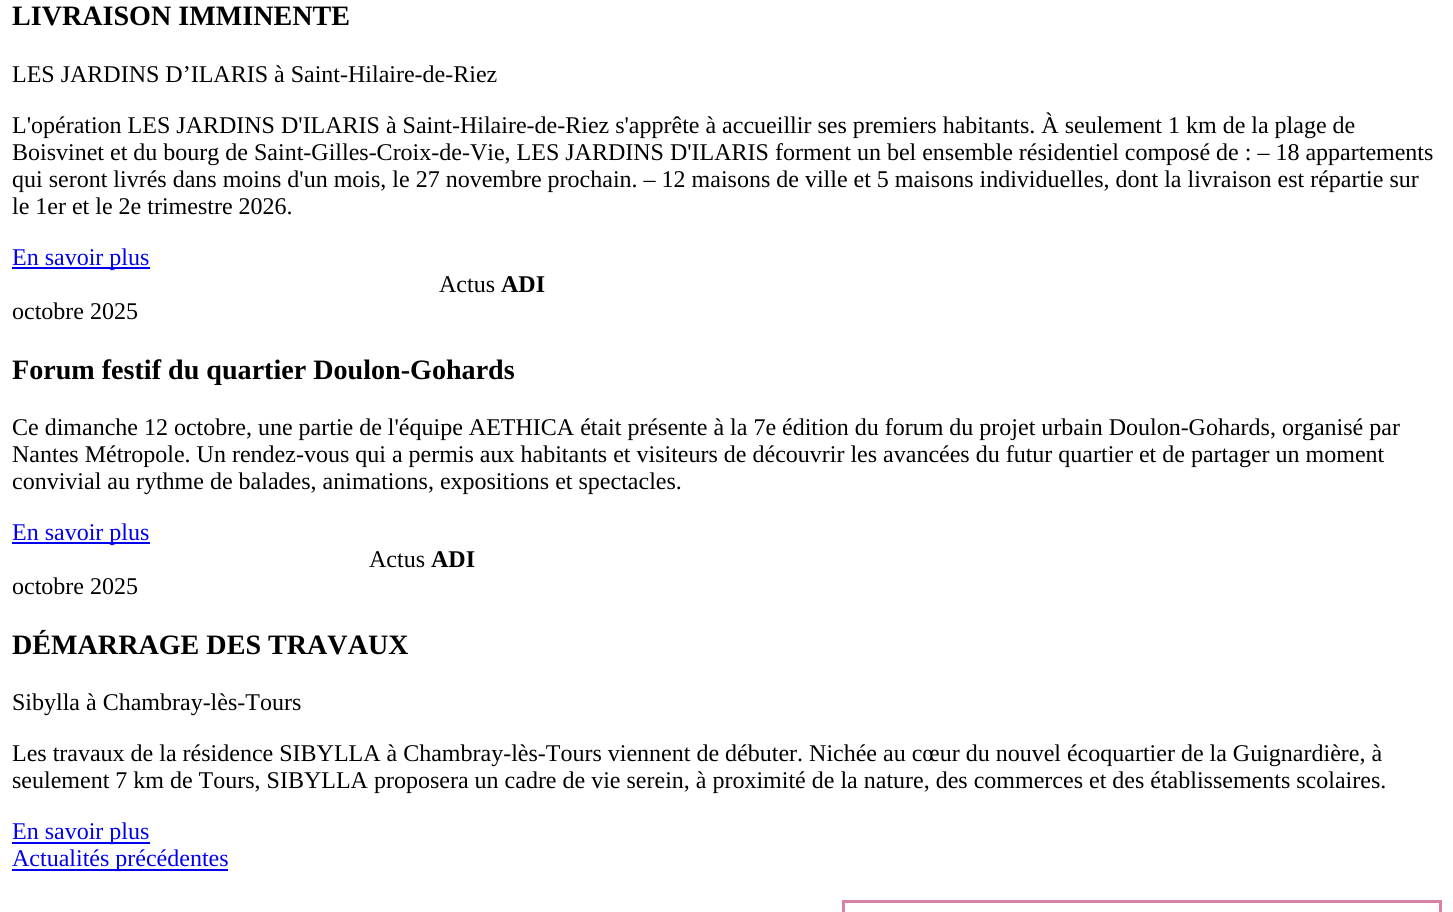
import math
import cairo

surface = cairo.ImageSurface(cairo.FORMAT_RGB24, 1453, 912)
c = cairo.Context(surface)
options = cairo.FontOptions()
options.set_hint_metrics(cairo.HINT_METRICS_OFF)
options.set_hint_style(cairo.HINT_STYLE_NONE)
c.set_font_options(options)
c.set_miter_limit(4)
def C(code):
 c.set_source_rgb(*(v / 255 for v in bytes.fromhex(code[-6:])))
def F(family, size, italic, bold):
 c.select_font_face(family, cairo.FONT_SLANT_ITALIC if italic else cairo.FONT_SLANT_NORMAL, cairo.FONT_WEIGHT_BOLD if bold else cairo.FONT_WEIGHT_NORMAL)
 c.set_font_size(size)
def T(x, y, s):
 c.move_to(x, y)
 c.show_text(s)
def R(x, y, w, h):
 c.rectangle(x, y, w, h)
 c.fill()
C('ffffff')
c.paint()
F('Liberation Serif',28.1,0,1)
C('000000')
T(12,25,'LIVRAISON IMMINENTE')
F('Liberation Serif',24,0,0)
T(12,82,'LES JARDINS D’ILARIS à Saint-Hilaire-de-Riez')
T(12,133,'L\'opération LES JARDINS D\'ILARIS à Saint-Hilaire-de-Riez s\'apprête à accueillir ses premiers habitants. À seulement 1 km de la plage de')
T(12,160,'Boisvinet et du bourg de Saint-Gilles-Croix-de-Vie, LES JARDINS D\'ILARIS forment un bel ensemble résidentiel composé de : – 18 appartements')
T(12,187,'qui seront livrés dans moins d\'un mois, le 27 novembre prochain. – 12 maisons de ville et 5 maisons individuelles, dont la livraison est répartie sur')
T(12,214,'le 1er et le 2e trimestre 2026.')
C('0000ee')
R(12,267,138,2)
T(12,265,'En savoir plus')
C('000000')
T(439,292,'Actus')
F('Liberation Serif',24,0,1)
T(501,292,'ADI')
F('Liberation Serif',24,0,0)
T(12,319,'octobre 2025')
F('Liberation Serif',28.1,0,1)
T(12,379,'Forum festif du quartier Doulon-Gohards')
F('Liberation Serif',24,0,0)
T(12,435,'Ce dimanche 12 octobre, une partie de l\'équipe AETHICA était présente à la 7e édition du forum du projet urbain Doulon-Gohards, organisé par')
T(12,462,'Nantes Métropole. Un rendez-vous qui a permis aux habitants et visiteurs de découvrir les avancées du futur quartier et de partager un moment')
T(12,489,'convivial au rythme de balades, animations, expositions et spectacles.')
C('0000ee')
R(12,542,138,2)
T(12,540,'En savoir plus')
C('000000')
T(369,567,'Actus')
F('Liberation Serif',24,0,1)
T(431,567,'ADI')
F('Liberation Serif',24,0,0)
T(12,594,'octobre 2025')
F('Liberation Serif',28.1,0,1)
T(12,654,'DÉMARRAGE DES TRAVAUX')
F('Liberation Serif',24,0,0)
T(12,710,'Sibylla à Chambray-lès-Tours')
T(12,761,'Les travaux de la résidence SIBYLLA à Chambray-lès-Tours viennent de débuter. Nichée au cœur du nouvel écoquartier de la Guignardière, à')
T(12,788,'seulement 7 km de Tours, SIBYLLA proposera un cadre de vie serein, à proximité de la nature, des commerces et des établissements scolaires.')
C('0000ee')
R(12,842,138,2)
T(12,839,'En savoir plus')
R(12,869,216,2)
T(12,866,'Actualités précédentes')
c.rectangle(843.5,901.5,597,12)
C('d980a8')
c.set_line_width(3)
c.stroke()
surface.write_to_png('o.png')
